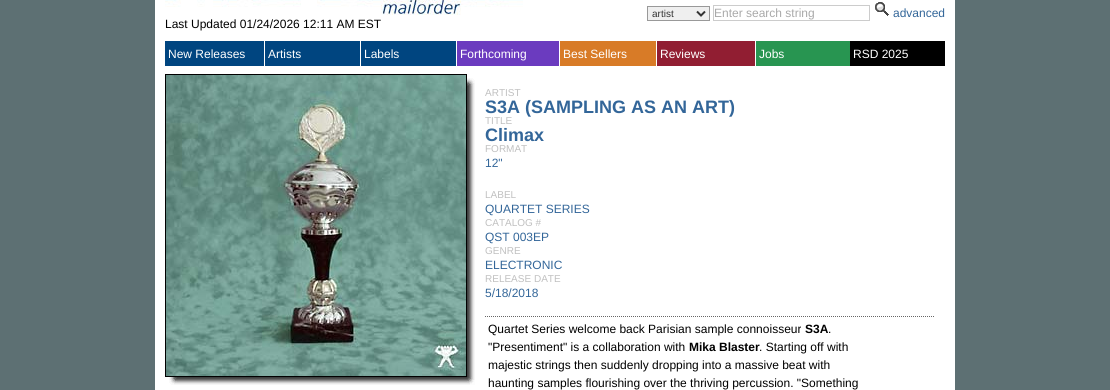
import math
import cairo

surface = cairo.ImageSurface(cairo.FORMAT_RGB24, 1110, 390)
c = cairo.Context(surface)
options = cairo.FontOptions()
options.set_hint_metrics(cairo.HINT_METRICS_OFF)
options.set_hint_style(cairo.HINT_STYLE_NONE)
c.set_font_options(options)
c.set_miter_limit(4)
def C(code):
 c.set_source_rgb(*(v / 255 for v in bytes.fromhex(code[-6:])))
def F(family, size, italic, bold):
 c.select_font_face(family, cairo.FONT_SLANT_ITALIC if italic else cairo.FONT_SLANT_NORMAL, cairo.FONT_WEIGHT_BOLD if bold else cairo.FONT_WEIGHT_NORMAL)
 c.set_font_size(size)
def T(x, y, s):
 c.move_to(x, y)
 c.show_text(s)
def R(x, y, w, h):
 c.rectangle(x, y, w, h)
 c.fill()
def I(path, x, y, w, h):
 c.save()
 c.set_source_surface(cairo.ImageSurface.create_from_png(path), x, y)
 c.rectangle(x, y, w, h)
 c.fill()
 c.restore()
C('5d7073')
c.paint()
C('ffffff')
R(155,0,800,390)
C('efefef')
c.rectangle(647.5,6.5,62,14)
c.fill_preserve()
C('999999')
c.set_line_width(1)
c.stroke()
c.new_path()
c.move_to(697,11.5)
c.line_to(701,15.5)
c.line_to(705,11.5)
C('333333')
c.set_line_width(2)
c.stroke()
F('Liberation Sans',10,0,0)
T(652,17,'artist')
c.rectangle(713.5,5.5,156,15)
C('cccccc')
c.set_line_width(1)
c.stroke()
F('Liberation Sans',12,0,0)
C('a9a9a9')
T(714,17,'Enter search string')
I('1.png',875,2,14,14)
C('336699')
T(893,17,'advanced')
I('2.png',165,0,358,15)
C('000000')
T(165,28,'Last Updated 01/24/2026 12:11 AM EST')
C('004580')
R(165,41,99,25)
C('ffffff')
T(168,58,'New Releases')
C('004580')
R(265,41,95,25)
C('ffffff')
T(268,58,'Artists')
C('004580')
R(361,41,95,25)
C('ffffff')
T(364,58,'Labels')
C('6b3bbf')
R(457,41,102,25)
C('ffffff')
T(460,58,'Forthcoming')
C('d87b27')
R(560,41,96,25)
C('ffffff')
T(563,58,'Best Sellers')
C('911e32')
R(657,41,98,25)
C('ffffff')
T(660,58,'Reviews')
C('289551')
R(756,41,94,25)
C('ffffff')
T(759,58,'Jobs')
C('000000')
R(850,41,95,25)
C('ffffff')
T(853,58,'RSD 2025')
I('3.png',177,86,298,299)
I('4.png',165,377,12,8)
I('5.png',467,74,8,12)
c.rectangle(165.5,74.5,301,302)
C('000000')
c.stroke()
I('6.png',166,75,300,301)
F('Liberation Sans',10,0,0)
C('c0c0c0')
T(485,96,'ARTIST')
F('Liberation Sans',18,0,1)
C('336699')
T(485,113,'S3A (SAMPLING AS AN ART)')
F('Liberation Sans',10,0,0)
C('c0c0c0')
T(485,124,'TITLE')
F('Liberation Sans',18,0,1)
C('336699')
T(485,141,'Climax')
F('Liberation Sans',10,0,0)
C('c0c0c0')
T(485,152,'FORMAT')
F('Liberation Sans',12,0,0)
C('336699')
T(485,167,'12"')
F('Liberation Sans',10,0,0)
C('c0c0c0')
T(485,198,'LABEL')
F('Liberation Sans',12,0,0)
C('336699')
T(485,213,'QUARTET SERIES')
F('Liberation Sans',10,0,0)
C('c0c0c0')
T(485,226,'CATALOG #')
F('Liberation Sans',12,0,0)
C('336699')
T(485,241,'QST 003EP')
F('Liberation Sans',10,0,0)
C('c0c0c0')
T(485,254,'GENRE')
F('Liberation Sans',12,0,0)
C('336699')
T(485,269,'ELECTRONIC')
F('Liberation Sans',10,0,0)
C('c0c0c0')
T(485,282,'RELEASE DATE')
F('Liberation Sans',12,0,0)
C('336699')
T(485,297,'5/18/2018')
c.new_path()
c.move_to(485,316.5)
c.line_to(935,316.5)
C('666666')
c.set_dash([1,1])
c.stroke()
C('000000')
T(488,333,'Quartet Series welcome back Parisian sample connoisseur')
F('Liberation Sans',12,0,1)
T(805,333,'S3A')
F('Liberation Sans',12,0,0)
T(828,333,'.')
T(488,351,'"Presentiment" is a collaboration with')
F('Liberation Sans',12,0,1)
T(689,351,'Mika Blaster')
F('Liberation Sans',12,0,0)
T(759,351,'. Starting off with')
T(488,369,'majestic strings then suddenly dropping into a massive beat with')
T(488,387,'haunting samples flourishing over the thriving percussion. "Something')
surface.write_to_png('o.png')
